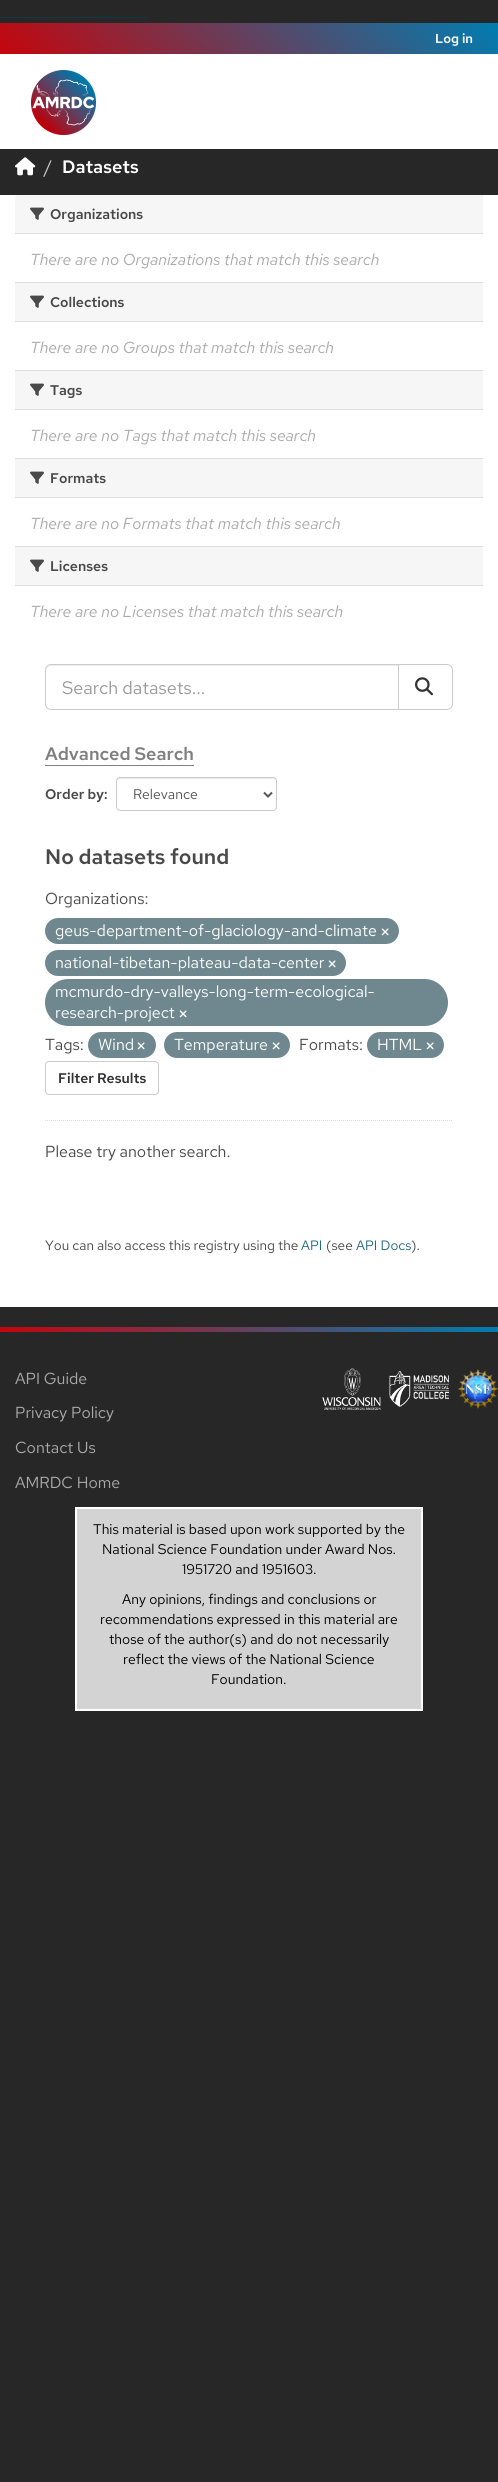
import math
import cairo

surface = cairo.ImageSurface(cairo.FORMAT_RGB24, 498, 2482)
c = cairo.Context(surface)
options = cairo.FontOptions()
options.set_hint_metrics(cairo.HINT_METRICS_OFF)
options.set_hint_style(cairo.HINT_STYLE_NONE)
c.set_font_options(options)
c.set_miter_limit(4)
def C(code):
 c.set_source_rgb(*(v / 255 for v in bytes.fromhex(code[-6:])))
def F(family, size, italic, bold):
 c.select_font_face(family, cairo.FONT_SLANT_ITALIC if italic else cairo.FONT_SLANT_NORMAL, cairo.FONT_WEIGHT_BOLD if bold else cairo.FONT_WEIGHT_NORMAL)
 c.set_font_size(size)
def T(x, y, s):
 c.move_to(x, y)
 c.show_text(s)
def R(x, y, w, h):
 c.rectangle(x, y, w, h)
 c.fill()
def Q(x, y, w, h, r):
 c.new_sub_path()
 for i, (u, v) in enumerate([(x + w - r, y + h - r), (x + r, y + h - r), (x + r, y + r), (x + w - r, y + r)]):
  c.arc(u, v, r, i * math.pi / 2, (i + 1) * math.pi / 2)
 c.close_path()
def I(path, x, y, w, h):
 c.save()
 c.set_source_surface(cairo.ImageSurface.create_from_png(path), x, y)
 c.rectangle(x, y, w, h)
 c.fill()
 c.restore()
C('282728')
c.paint()
C('113845')
R(0,17,148,1)
gradient = cairo.LinearGradient(117,171,381,-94)
gradient.add_color_stop_rgba(0,0.773,0.02,0.047,1)
gradient.add_color_stop_rgba(1,0,0.49,0.694,1)
c.set_source(gradient)
R(0,23,498,31)
F('Red Hat Text SemiBold',13,0,0)
C('ffffff')
T(435,43,'Log in')
R(0,54,498,95)
I('1.png',31,70,65,65)
I('2.png',15,157,21,19)
F('Red Hat Text',18,0,0)
C('cccccc')
T(44,173,'/')
F('Red Hat Text SemiBold',18,0,0)
C('ffffff')
T(62,173,'Datasets')
R(0,195,498,1112)
C('f6f6f6')
c.new_path()
c.move_to(18,195)
c.line_to(483,195)
c.line_to(483,234)
c.line_to(15,234)
c.line_to(15,198)
c.curve_to(15,196.5,16.5,195,18,195)
c.close_path()
c.fill()
C('dddddd')
R(15,233,468,1)
I('3.png',30,207,14,13)
F('Red Hat Text SemiBold',14,0,0)
C('494949')
T(50,219,'Organizations')
F('Red Hat Text',16,1,0)
C('aaaaaa')
T(30,265,'There are no Organizations that match this search')
C('f6f6f6')
R(15,283,468,38)
C('dddddd')
R(15,282,468,1)
R(15,321,468,1)
I('3.png',30,295,14,13)
F('Red Hat Text SemiBold',14,0,0)
C('494949')
T(50,307,'Collections')
F('Red Hat Text',16,1,0)
C('aaaaaa')
T(30,353,'There are no Groups that match this search')
C('f6f6f6')
R(15,371,468,38)
C('dddddd')
R(15,370,468,1)
R(15,409,468,1)
I('3.png',30,383,14,13)
F('Red Hat Text SemiBold',14,0,0)
C('494949')
T(50,395,'Tags')
F('Red Hat Text',16,1,0)
C('aaaaaa')
T(30,441,'There are no Tags that match this search')
C('f6f6f6')
R(15,459,468,38)
C('dddddd')
R(15,458,468,1)
R(15,497,468,1)
I('3.png',30,471,14,13)
F('Red Hat Text SemiBold',14,0,0)
C('494949')
T(50,483,'Formats')
F('Red Hat Text',16,1,0)
C('aaaaaa')
T(30,529,'There are no Formats that match this search')
C('f6f6f6')
R(15,547,468,38)
C('dddddd')
R(15,546,468,1)
R(15,585,468,1)
I('3.png',30,559,14,13)
F('Red Hat Text SemiBold',14,0,0)
C('494949')
T(50,571,'Licenses')
F('Red Hat Text',16,1,0)
C('aaaaaa')
T(30,617,'There are no Licenses that match this search')
c.new_path()
c.move_to(45,1120.5)
c.line_to(453,1120.5)
C('dddddd')
c.set_line_width(1)
c.set_dash([1,1])
c.stroke()
C('ececec')
c.new_path()
c.move_to(51,666)
c.line_to(398,666)
c.line_to(398,665)
c.line_to(51,665)
c.curve_to(48,665,46,667,46,670)
c.line_to(46,671)
c.curve_to(46,668,48,666,51,666)
c.close_path()
c.fill()
c.new_path()
c.move_to(51,664.5)
c.line_to(398.5,664.5)
c.line_to(398.5,709.5)
c.line_to(51,709.5)
c.curve_to(48,709.5,45.5,707,45.5,704)
c.line_to(45.5,670)
c.curve_to(45.5,667,48,664.5,51,664.5)
c.close_path()
C('cccccc')
c.set_dash([])
c.stroke()
F('Red Hat Text',18,0,0)
C('999999')
T(62,694,'Search datasets...')
C('ffffff')
c.new_path()
c.move_to(398.5,664.5)
c.line_to(447,664.5)
c.curve_to(450,664.5,452.5,667,452.5,670)
c.line_to(452.5,704)
c.curve_to(452.5,707,450,709.5,447,709.5)
c.line_to(398.5,709.5)
c.close_path()
c.fill_preserve()
C('cccccc')
c.stroke()
I('4.png',415,677,18,19)
F('Red Hat Text SemiBold',18,0,0)
C('808080')
T(45,760,'Advanced Search')
R(45,765,149,1)
F('Red Hat Text SemiBold',14,0,0)
C('494949')
T(45,799,'Order by:')
C('ececec')
c.new_path()
c.move_to(120,779)
c.line_to(273,779)
c.curve_to(275,779,276,780,276,782)
c.curve_to(276,780,275,778,273,778)
c.line_to(119,778)
c.curve_to(117,778,117,780,117,782)
c.curve_to(117,780,118,779,120,779)
c.close_path()
c.fill()
Q(116.5,777.5,160,33,3.5)
C('cccccc')
c.stroke()
c.new_path()
c.move_to(264,792.5)
c.line_to(268,796.5)
c.line_to(272,792.5)
C('555555')
c.set_line_width(2)
c.stroke()
F('Red Hat Text',14,0,0)
T(133,799,'Relevance')
F('Red Hat Text SemiBold',21,0,0)
C('494949')
T(45,864,'No datasets found')
F('Red Hat Text',16,0,0)
T(45,904,'Organizations:')
C('6f8890')
Q(45,918,354,26,13)
c.fill()
C('ffffff')
T(55,936,'geus-department-of-glaciology-and-climate')
I('5.png',381,928,8,8)
C('6f8890')
Q(45,950,301,26,13)
c.fill()
C('ffffff')
T(55,968,'national-tibetan-plateau-data-center')
I('5.png',328,960,8,8)
C('6f8890')
Q(45,979,403,47,23.5)
c.fill()
C('ffffff')
T(55,997,'mcmurdo-dry-valleys-long-term-ecological-')
T(55,1018,'research-project')
I('5.png',179,1010,8,8)
C('494949')
T(45,1050,'Tags:')
C('6f8890')
Q(88,1032,68,26,13)
c.fill()
C('ffffff')
T(98,1050,'Wind')
I('5.png',137,1042,8,8)
C('6f8890')
Q(164,1032,126,26,13)
c.fill()
C('ffffff')
T(174,1050,'Temperature')
I('5.png',272,1042,8,8)
C('494949')
T(299,1050,'Formats:')
C('6f8890')
Q(367,1032,77,26,13)
c.fill()
C('ffffff')
T(377,1050,'HTML')
I('5.png',426,1042,8,8)
Q(45.5,1061.5,113,33,3.5)
C('cccccc')
c.set_line_width(1)
c.stroke()
F('Red Hat Text SemiBold',14,0,0)
C('333333')
T(58,1083,'Filter Results')
F('Red Hat Text',16,0,0)
C('494949')
T(45,1157,'Please try another search.')
F('Red Hat Text',13.6,0,0)
T(45,1250,'You can also access this registry using the')
C('206b82')
T(301,1250,'API')
C('494949')
T(326,1250,'(see')
C('206b82')
T(356,1250,'API Docs')
C('494949')
T(411,1250,').')
gradient = cairo.LinearGradient(123,1455,375,1204)
gradient.add_color_stop_rgba(0,0.773,0.02,0.047,1)
gradient.add_color_stop_rgba(1,0,0.49,0.694,1)
c.set_source(gradient)
R(0,1327,498,5)
F('Red Hat Text',16,0,0)
C('aaaaaa')
T(15,1384,'API Guide')
T(15,1418,'Privacy Policy')
T(15,1453,'Contact Us')
T(15,1488,'AMRDC Home')
I('6.png',322,1368,59,42)
I('7.png',389,1371,60,36)
I('8.png',458,1369,40,40)
C('d3d3d3')
c.rectangle(76,1508,346,202)
c.fill_preserve()
C('ffffff')
c.set_line_width(2)
c.stroke()
F('Red Hat Text',14,0,0)
C('000000')
T(93,1534,'This material is based upon work supported by the')
T(102,1554,'National Science Foundation under Award Nos.')
T(182,1574,'1951720 and 1951603.')
T(122,1604,'Any opinions, findings and conclusions or')
T(100,1624,'recommendations expressed in this material are')
T(109,1644,'those of the author(s) and do not necessarily')
T(123,1664,'reflect the views of the National Science')
T(211,1684,'Foundation.')
surface.write_to_png('o.png')
